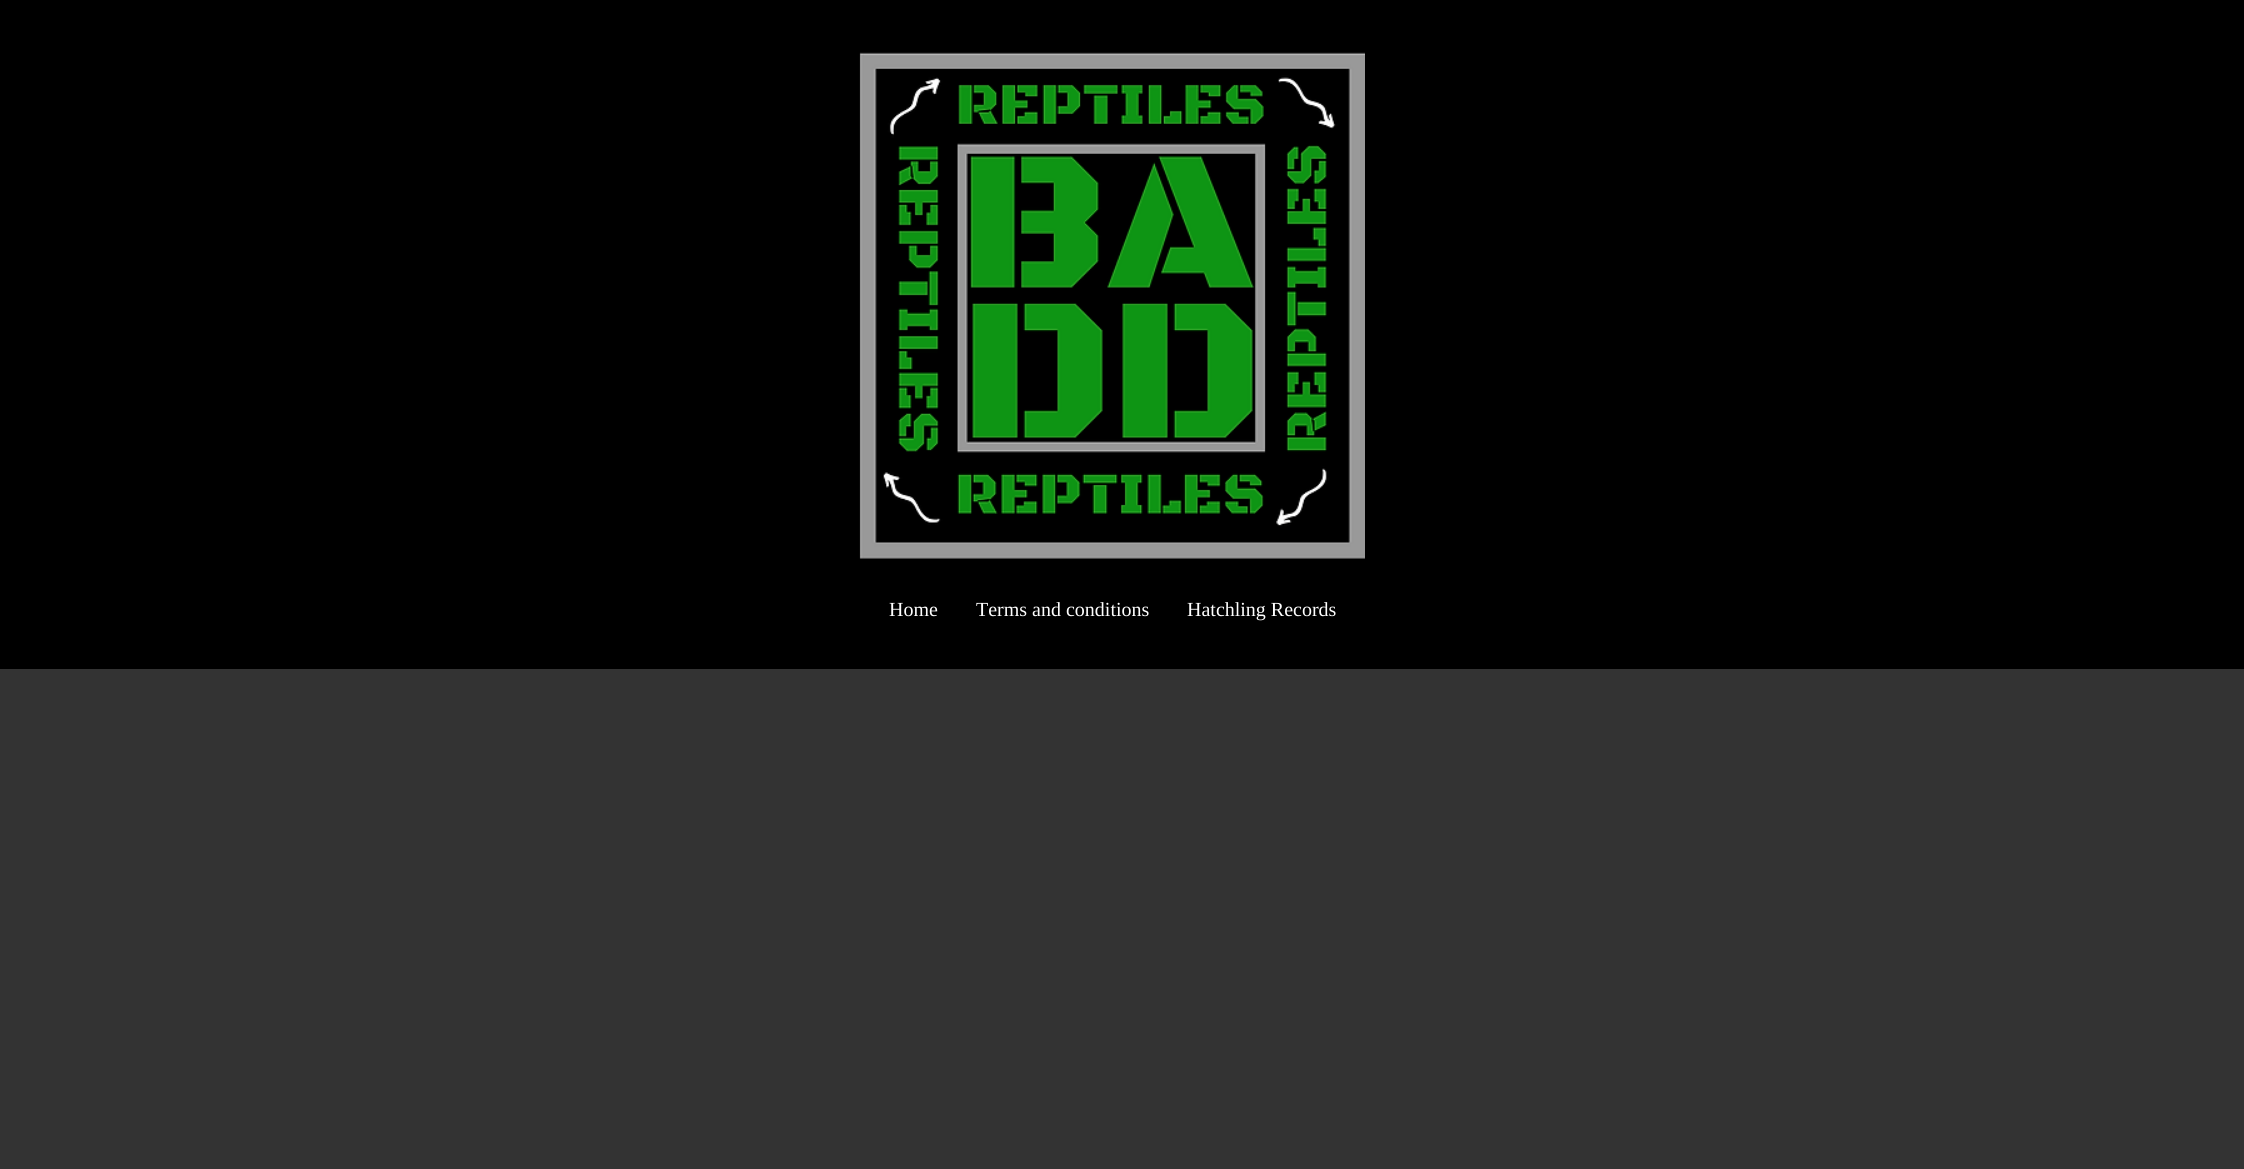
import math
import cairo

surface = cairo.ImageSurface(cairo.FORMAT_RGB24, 2244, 1169)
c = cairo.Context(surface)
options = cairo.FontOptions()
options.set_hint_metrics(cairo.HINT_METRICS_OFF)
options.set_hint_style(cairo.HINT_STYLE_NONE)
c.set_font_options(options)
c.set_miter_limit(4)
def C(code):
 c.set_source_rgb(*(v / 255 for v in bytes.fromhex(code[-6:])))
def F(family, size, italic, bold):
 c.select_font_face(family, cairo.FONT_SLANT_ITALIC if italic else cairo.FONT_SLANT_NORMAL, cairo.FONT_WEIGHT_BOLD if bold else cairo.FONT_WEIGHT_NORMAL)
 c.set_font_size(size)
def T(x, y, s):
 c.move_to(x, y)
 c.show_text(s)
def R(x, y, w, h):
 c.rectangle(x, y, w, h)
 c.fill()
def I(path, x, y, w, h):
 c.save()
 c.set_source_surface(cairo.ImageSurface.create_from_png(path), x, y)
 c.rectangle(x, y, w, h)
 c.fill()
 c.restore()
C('333333')
c.paint()
C('000000')
R(0,0,2244,669)
I('1.png',859,52,506,507)
F('Liberation Serif',20,0,0)
C('ffffff')
T(889,616,'Home')
T(976,616,'Terms and conditions')
T(1187,616,'Hatchling Records')
surface.write_to_png('o.png')
